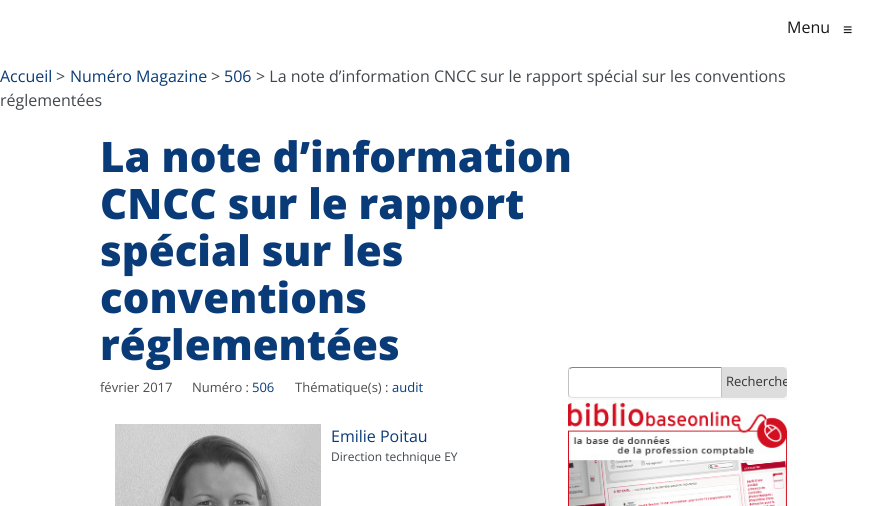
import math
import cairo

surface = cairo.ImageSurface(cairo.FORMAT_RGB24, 887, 506)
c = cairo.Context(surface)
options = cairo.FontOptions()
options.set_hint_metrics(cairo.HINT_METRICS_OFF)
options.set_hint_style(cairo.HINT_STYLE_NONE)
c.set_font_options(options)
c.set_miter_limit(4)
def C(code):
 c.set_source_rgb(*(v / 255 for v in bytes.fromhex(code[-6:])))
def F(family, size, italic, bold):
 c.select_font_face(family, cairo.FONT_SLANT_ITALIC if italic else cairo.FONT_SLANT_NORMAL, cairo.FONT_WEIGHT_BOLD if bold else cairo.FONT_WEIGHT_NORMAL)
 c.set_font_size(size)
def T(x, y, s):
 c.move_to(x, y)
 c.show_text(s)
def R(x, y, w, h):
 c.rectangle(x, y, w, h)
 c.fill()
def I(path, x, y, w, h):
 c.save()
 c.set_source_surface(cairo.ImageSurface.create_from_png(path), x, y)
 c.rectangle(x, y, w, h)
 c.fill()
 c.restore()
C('ffffff')
c.paint()
F('Open Sans',16,0,0)
C('171717')
T(787,33,'Menu')
F('Liberation Sans',16,0,0)
T(843,35,'≡')
F('Open Sans',16,0,0)
C('093b78')
T(0,82,'Accueil')
C('41484d')
T(56,82,'>')
C('093b78')
T(70,82,'Numéro Magazine')
C('41484d')
T(211,82,'>')
C('093b78')
T(224,82,'506')
C('41484d')
T(256,82,'> La note d’information CNCC sur le rapport spécial sur les conventions')
T(0,106,'réglementées')
F('Open Sans ExtraBold',42,0,0)
C('093b78')
T(100,172,'La note d’information')
T(100,219,'CNCC sur le rapport')
T(100,266,'spécial sur les')
T(100,313,'conventions')
T(100,360,'réglementées')
F('Open Sans',13,0,0)
C('4d4d4d')
T(100,392,'février 2017')
T(192,392,'Numéro :')
C('093b78')
T(252,392,'506')
C('4d4d4d')
T(295,392,'Thématique(s) :')
C('093b78')
T(392,392,'audit')
I('1.png',115,424,206,82)
F('Open Sans',16,0,0)
T(331,442,'Emilie Poitau')
F('Open Sans',12,0,0)
C('41484d')
T(331,461,'Direction technique EY')
C('faf9f9')
R(568,367,219,33)
C('ffffff')
c.new_path()
c.move_to(572,367)
c.line_to(722,367)
c.line_to(722,398)
c.line_to(572,398)
c.curve_to(570,398,568,396,568,394)
c.line_to(568,371)
c.curve_to(568,369,570,367,572,367)
c.close_path()
c.fill()
C('848484')
c.new_path()
c.move_to(572,367)
c.line_to(569,368)
c.line_to(570,369)
c.line_to(572,368)
c.line_to(721,368)
c.line_to(722,367)
c.close_path()
c.fill()
C('c1c1c1')
c.new_path()
c.move_to(722,367)
c.line_to(721,368)
c.line_to(721,397)
c.line_to(722,398)
c.close_path()
c.fill()
C('e1e1e1')
c.new_path()
c.move_to(722,398)
c.line_to(721,397)
c.line_to(572,397)
c.line_to(570,396)
c.line_to(569,397)
c.line_to(572,398)
c.close_path()
c.fill()
C('c1c1c1')
c.new_path()
c.move_to(568,371)
c.line_to(568,394)
c.curve_to(568,395,568.5,396,569,397)
c.line_to(570,396)
c.curve_to(569,396,569,395,569,394)
c.line_to(569,371)
c.curve_to(569,370,569,369,570,369)
c.line_to(569,368)
c.curve_to(568.5,369,568,370,568,371)
c.close_path()
c.fill()
C('dddddd')
c.new_path()
c.move_to(722,367)
c.line_to(783,367)
c.curve_to(785,367,787,369,787,371)
c.line_to(787,394)
c.curve_to(787,396,785,398,783,398)
c.line_to(722,398)
c.close_path()
c.fill()
c.save()
c.new_path()
c.move_to(722,367)
c.line_to(783,367)
c.curve_to(785,367,787,369,787,371)
c.line_to(787,394)
c.curve_to(787,396,785,398,783,398)
c.line_to(722,398)
c.close_path()
c.clip()
F('Open Sans',13,0,0)
C('333333')
T(726,386,'Recherche')
c.restore()
I('2.png',568,400,219,106)
surface.write_to_png('o.png')
